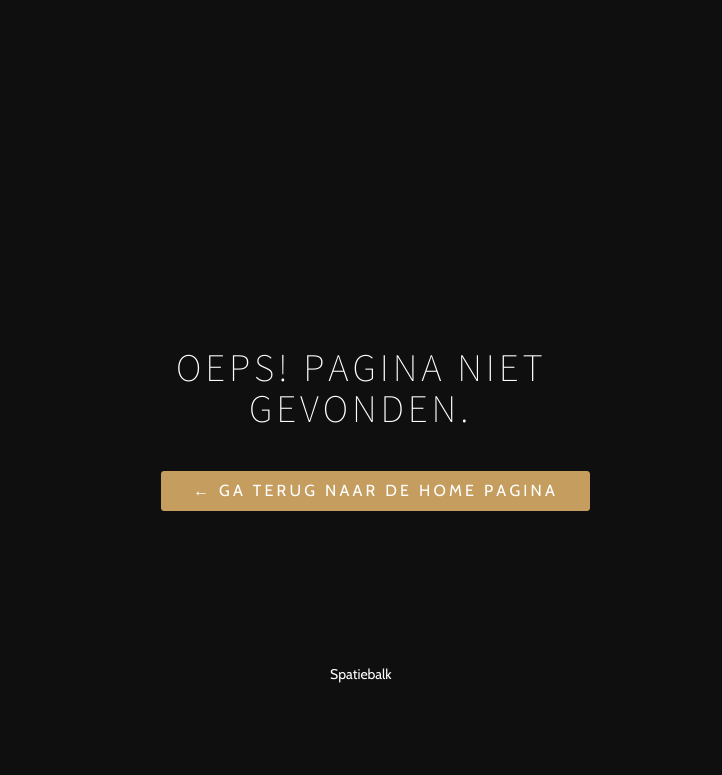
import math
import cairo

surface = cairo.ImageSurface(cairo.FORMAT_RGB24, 722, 775)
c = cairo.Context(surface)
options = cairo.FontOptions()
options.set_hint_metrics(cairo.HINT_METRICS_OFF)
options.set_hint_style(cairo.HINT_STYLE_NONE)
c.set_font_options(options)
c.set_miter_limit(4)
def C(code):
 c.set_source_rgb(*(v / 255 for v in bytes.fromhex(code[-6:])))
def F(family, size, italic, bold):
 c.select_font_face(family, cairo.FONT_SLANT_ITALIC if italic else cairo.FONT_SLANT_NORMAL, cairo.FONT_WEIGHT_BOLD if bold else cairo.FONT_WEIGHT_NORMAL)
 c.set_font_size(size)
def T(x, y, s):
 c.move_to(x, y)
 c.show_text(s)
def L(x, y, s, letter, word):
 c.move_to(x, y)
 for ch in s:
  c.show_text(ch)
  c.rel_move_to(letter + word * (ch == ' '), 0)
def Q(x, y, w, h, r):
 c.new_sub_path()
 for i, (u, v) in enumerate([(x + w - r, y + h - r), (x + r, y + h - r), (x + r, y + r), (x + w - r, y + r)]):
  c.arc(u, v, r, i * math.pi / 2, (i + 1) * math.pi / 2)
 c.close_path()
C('100f0f')
c.paint()
F('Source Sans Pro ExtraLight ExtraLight',39,0,0)
C('ffffff')
L(176,381,'OEPS! PAGINA NIET',3.9,0)
L(249,422,'GEVONDEN.',3.9,0)
C('c59d5f')
Q(161,471,429,40,3)
c.fill()
F('Liberation Serif',16,0,0)
C('ffffff')
L(193,496,'←',3.2,0)
F('Cabin',16,0,0)
L(219,496,'GA TERUG NAAR DE HOME PAGINA',3.2,0)
F('Cabin',14,0,0)
T(330,679,'Spatiebalk')
surface.write_to_png('o.png')
